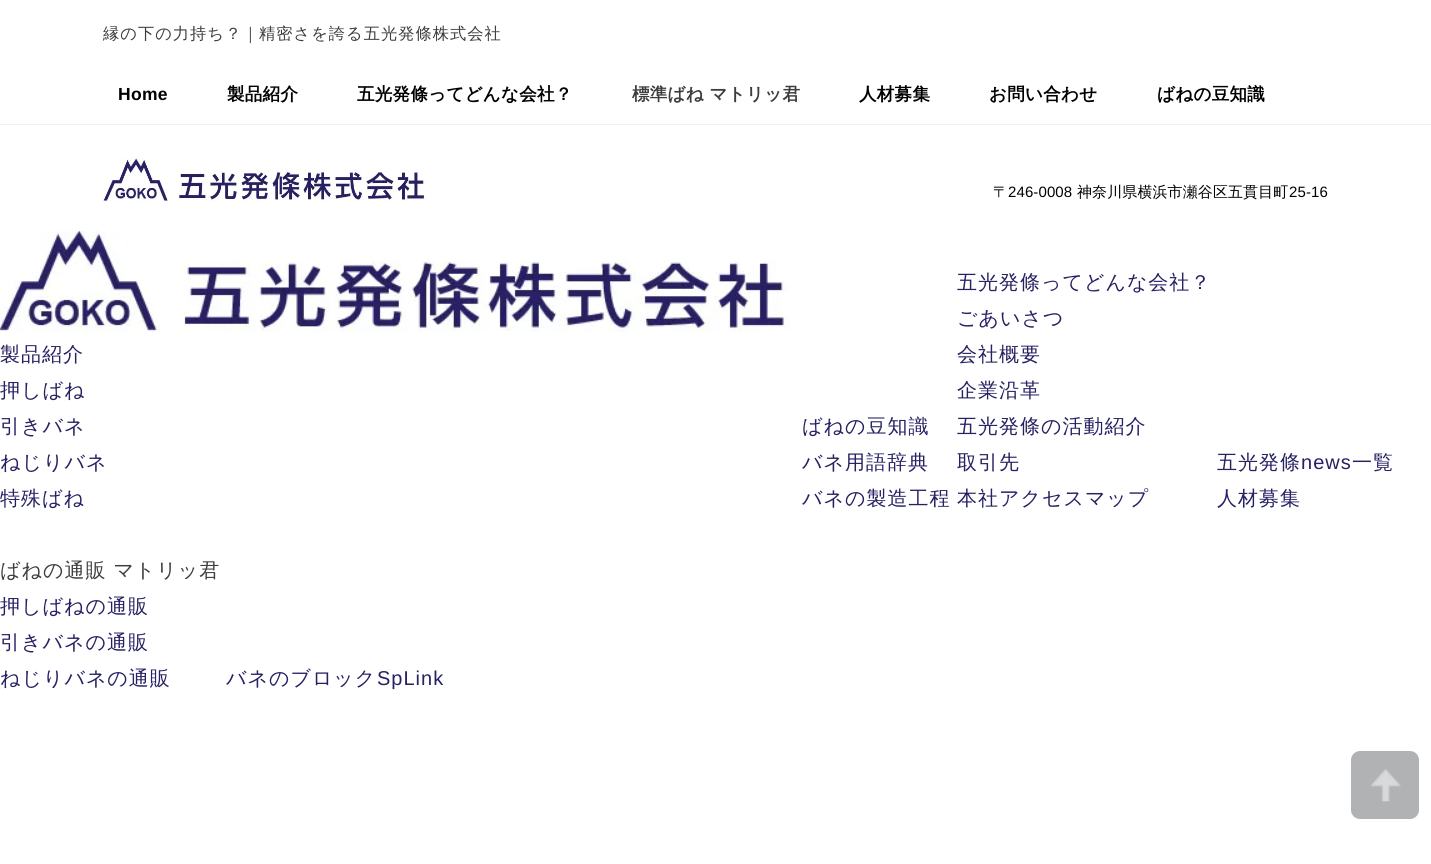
import math
import cairo

surface = cairo.ImageSurface(cairo.FORMAT_RGB24, 1431, 864)
c = cairo.Context(surface)
options = cairo.FontOptions()
options.set_hint_metrics(cairo.HINT_METRICS_OFF)
options.set_hint_style(cairo.HINT_STYLE_NONE)
c.set_font_options(options)
c.set_miter_limit(4)
def C(code):
 c.set_source_rgb(*(v / 255 for v in bytes.fromhex(code[-6:])))
def F(family, size, italic, bold):
 c.select_font_face(family, cairo.FONT_SLANT_ITALIC if italic else cairo.FONT_SLANT_NORMAL, cairo.FONT_WEIGHT_BOLD if bold else cairo.FONT_WEIGHT_NORMAL)
 c.set_font_size(size)
def L(x, y, s, letter, word):
 c.move_to(x, y)
 for ch in s:
  c.show_text(ch)
  c.rel_move_to(letter + word * (ch == ' '), 0)
def R(x, y, w, h):
 c.rectangle(x, y, w, h)
 c.fill()
def Q(x, y, w, h, r):
 c.new_sub_path()
 for i, (u, v) in enumerate([(x + w - r, y + h - r), (x + r, y + h - r), (x + r, y + r), (x + w - r, y + r)]):
  c.arc(u, v, r, i * math.pi / 2, (i + 1) * math.pi / 2)
 c.close_path()
def I(path, x, y, w, h):
 c.save()
 c.set_source_surface(cairo.ImageSurface.create_from_png(path), x, y)
 c.rectangle(x, y, w, h)
 c.fill()
 c.restore()
C('ffffff')
c.paint()
C('f0f0f0')
R(0,124,1431,1)
F('WenQuanYi Zen Hei Medium',16.25,0,0)
C('3d3d3d')
L(103,39,'縁の下の力持ち？｜精密さを誇る五光発條株式会社',1,0)
F('Liberation Sans',17.5,0,1)
C('000000')
L(118,100,'Home',.3,0)
F('WenQuanYi Zen Hei',17.5,0,1)
L(227,100,'製品紹介',.3,0)
L(357,100,'五光発條ってどんな会社？',.3,0)
C('3d3d3d')
L(632,100,'標準ばね マトリッ君',.3,0)
C('000000')
L(859,100,'人材募集',.3,0)
L(989,100,'お問い合わせ',.3,0)
L(1157,100,'ばねの豆知識',.3,0)
I('1.png',103,158,324,44)
F('WenQuanYi Zen Hei Medium',15,0,0)
L(993,197,'〒',.1,0)
F('Liberation Sans',15,0,0)
L(1008,197,'246-0008',.1,0)
F('WenQuanYi Zen Hei Medium',15,0,0)
L(1077,197,'神奈川県横浜市瀬谷区五貫目町',.1,0)
F('Liberation Sans',15,0,0)
L(1289,197,'25-16',.1,0)
I('2.png',0,231,790,101)
F('WenQuanYi Zen Hei Medium',20,0,0)
C('262163')
L(0,361,'製品紹介',1,0)
L(0,397,'押しばね',1,0)
L(0,433,'引きバネ',1,0)
L(0,469,'ねじりバネ',1,0)
L(0,505,'特殊ばね',1,0)
L(802,433,'ばねの豆知識',1,0)
L(802,469,'バネ用語辞典',1,0)
L(802,505,'バネの製造工程',1,0)
L(957,289,'五光発條ってどんな会社？',1,0)
L(957,325,'ごあいさつ',1,0)
L(957,361,'会社概要',1,0)
L(957,397,'企業沿革',1,0)
L(957,433,'五光発條の活動紹介',1,0)
L(957,469,'取引先',1,0)
L(957,505,'本社アクセスマップ',1,0)
L(1217,469,'五光発條',1,0)
F('Liberation Sans',20,0,0)
L(1301,469,'news',1,0)
F('WenQuanYi Zen Hei Medium',20,0,0)
L(1352,469,'一覧',1,0)
L(1217,505,'人材募集',1,0)
C('3d3d3d')
L(0,577,'ばねの通販 マトリッ君',1,0)
C('262163')
L(0,613,'押しばねの通販',1,0)
L(0,649,'引きバネの通販',1,0)
L(0,685,'ねじりバネの通販',1,0)
L(226,685,'バネのブロック',1,0)
F('Liberation Sans',20,0,0)
L(377,685,'SpLink',1,0)
C('b1b2b4')
Q(1351,751,68,68,9)
c.fill()
I('3.png',1370,768,31,34)
surface.write_to_png('o.png')
